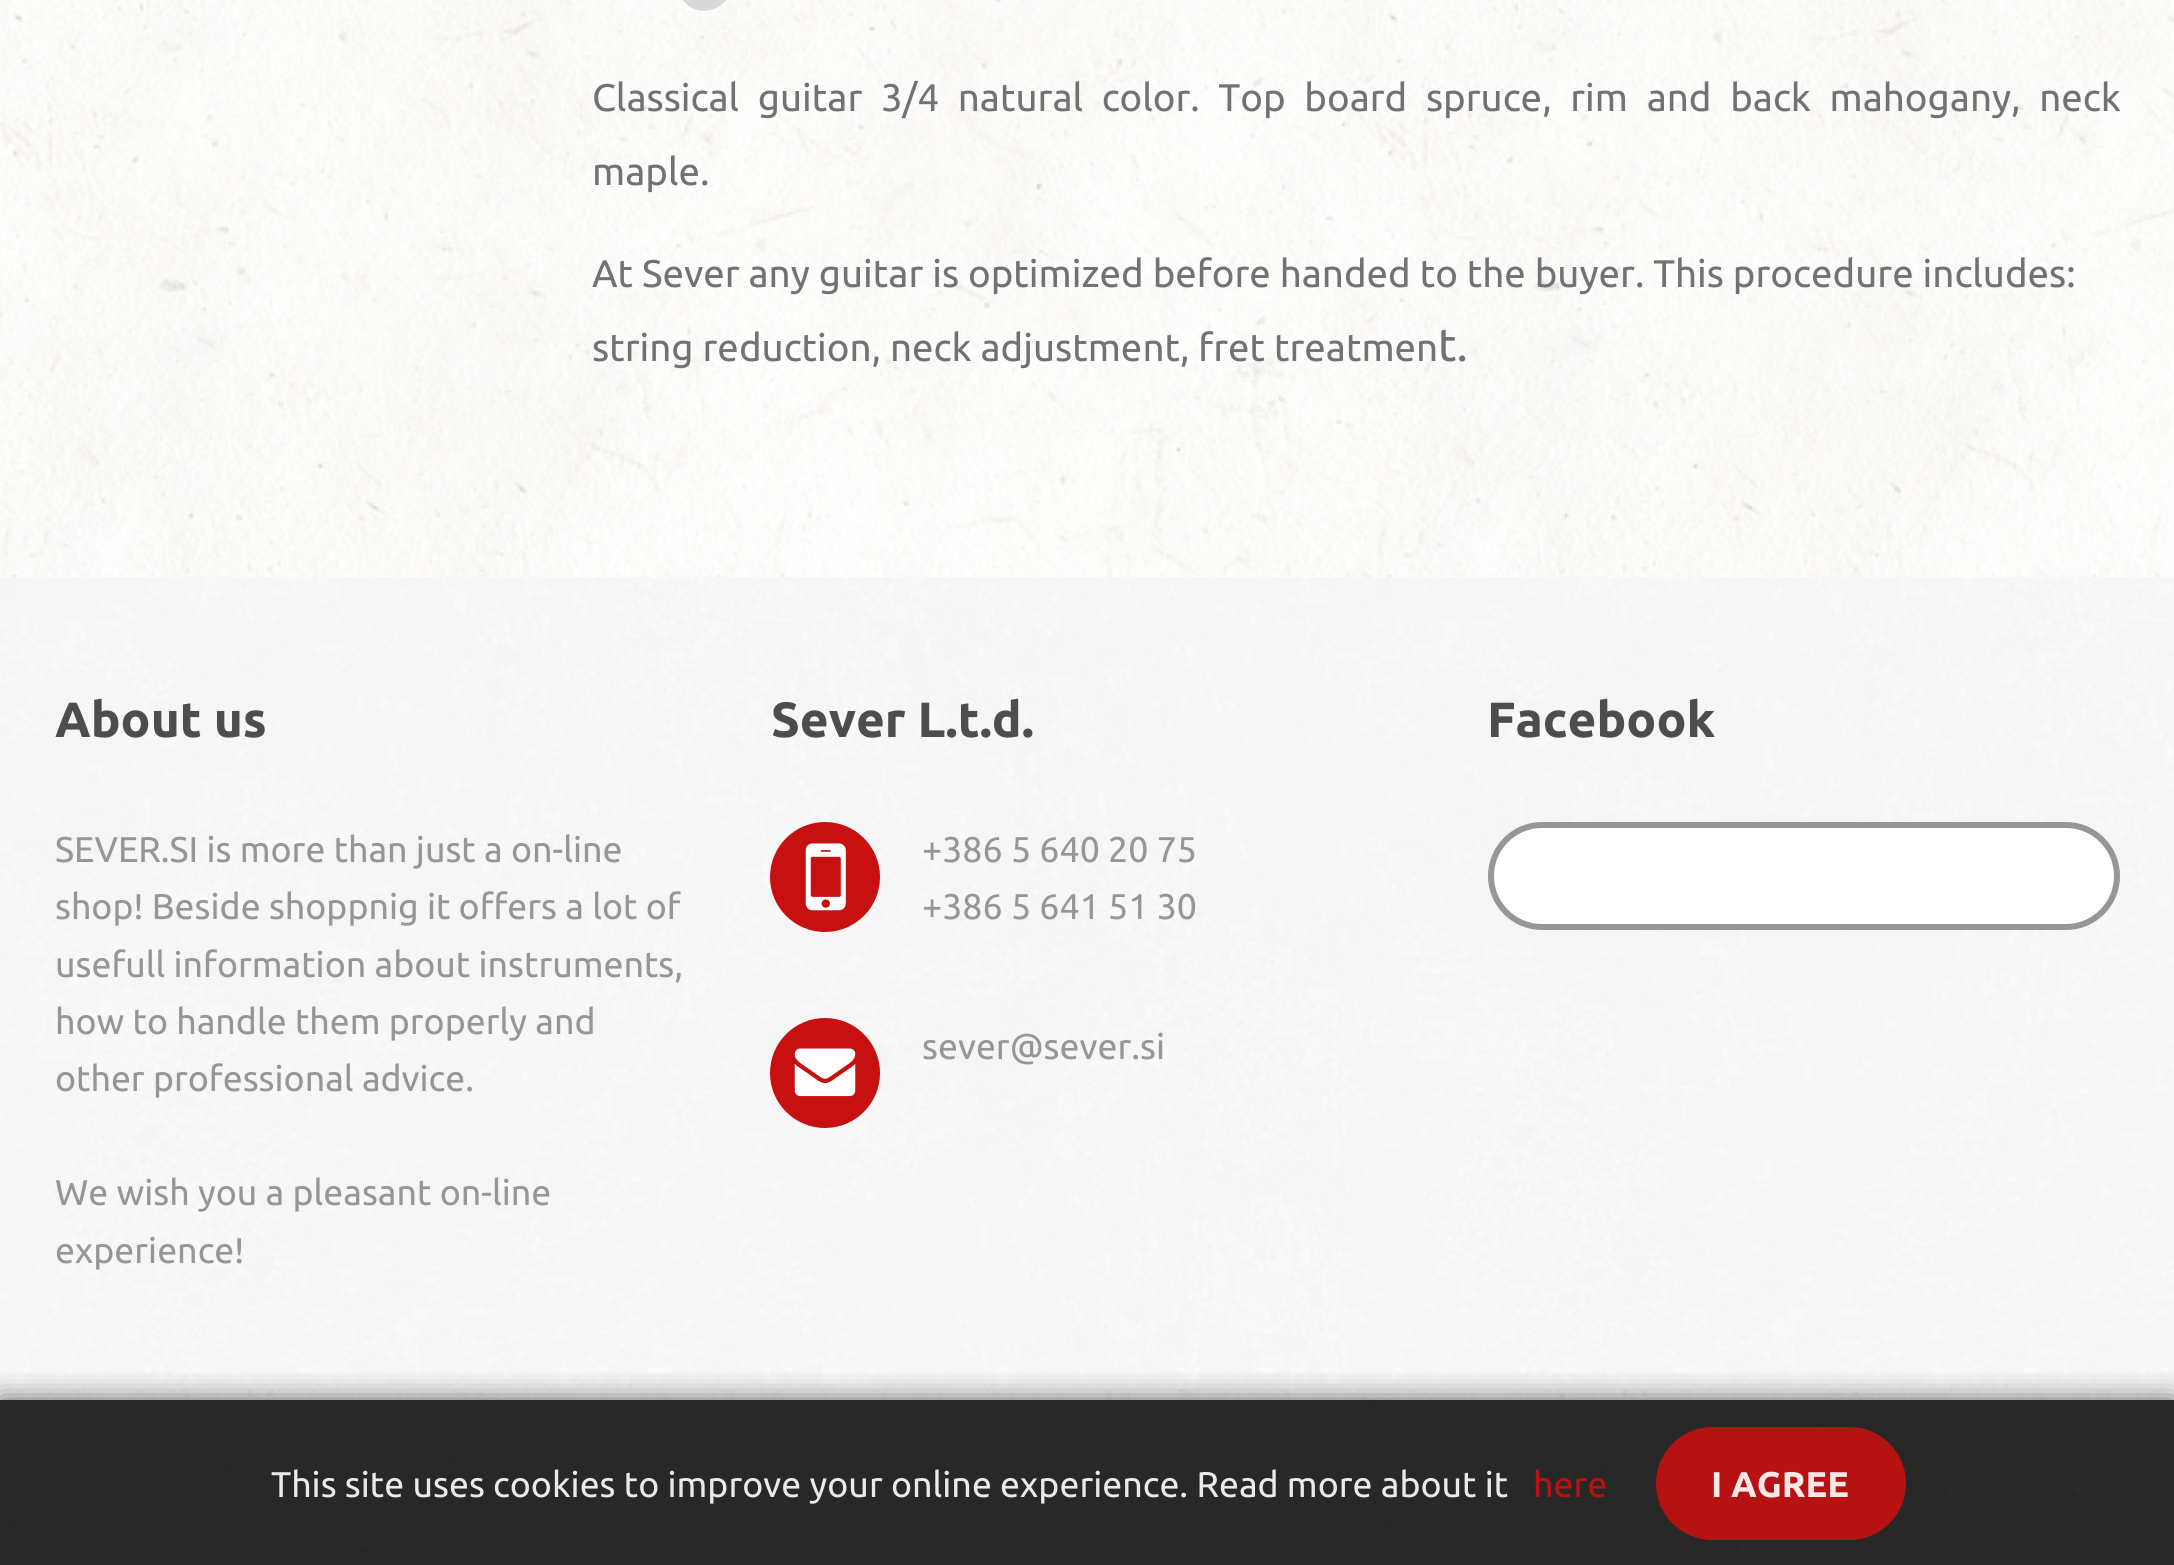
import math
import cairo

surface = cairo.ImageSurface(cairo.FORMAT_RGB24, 2174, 1565)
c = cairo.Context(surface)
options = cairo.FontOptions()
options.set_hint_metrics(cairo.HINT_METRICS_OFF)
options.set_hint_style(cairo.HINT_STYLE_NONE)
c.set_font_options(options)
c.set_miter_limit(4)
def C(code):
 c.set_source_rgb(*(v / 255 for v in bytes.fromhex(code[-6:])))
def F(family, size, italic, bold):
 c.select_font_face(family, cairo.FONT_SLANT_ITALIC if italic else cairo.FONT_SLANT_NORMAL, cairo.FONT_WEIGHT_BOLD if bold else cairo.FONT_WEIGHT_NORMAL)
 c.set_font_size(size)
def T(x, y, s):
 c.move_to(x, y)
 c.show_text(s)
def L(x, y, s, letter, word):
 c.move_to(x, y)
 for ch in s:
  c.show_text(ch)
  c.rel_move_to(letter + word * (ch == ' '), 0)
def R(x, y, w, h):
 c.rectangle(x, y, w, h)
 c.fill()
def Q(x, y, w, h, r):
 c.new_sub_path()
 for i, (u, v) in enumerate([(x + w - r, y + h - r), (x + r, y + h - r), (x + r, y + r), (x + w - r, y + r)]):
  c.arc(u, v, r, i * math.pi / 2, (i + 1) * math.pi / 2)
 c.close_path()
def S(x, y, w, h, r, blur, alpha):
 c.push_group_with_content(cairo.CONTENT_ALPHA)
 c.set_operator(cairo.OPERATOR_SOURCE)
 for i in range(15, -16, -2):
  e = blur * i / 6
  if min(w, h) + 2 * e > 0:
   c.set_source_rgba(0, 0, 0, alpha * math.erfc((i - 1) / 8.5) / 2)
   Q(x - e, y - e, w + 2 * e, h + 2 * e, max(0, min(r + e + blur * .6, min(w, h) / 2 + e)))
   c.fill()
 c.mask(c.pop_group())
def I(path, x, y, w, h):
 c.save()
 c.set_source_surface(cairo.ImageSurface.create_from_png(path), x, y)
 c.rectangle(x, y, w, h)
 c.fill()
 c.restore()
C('ffffff')
c.paint()
I('1.png',0,0,2174,1565)
C('d9d9d9')
c.new_path()
c.move_to(677,-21)
c.curve_to(676,-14,678,-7,682,-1)
c.curve_to(699,24,738,6,731,-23)
c.curve_to(727,6,685,8,677,-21)
c.close_path()
c.fill()
F('Ubuntu',38.5,0,0)
C('727272')
L(592,111,'Classical guitar 3/4 natural color. Top board spruce, rim and back mahogany, neck',0,9.75)
T(592,185,'maple.')
T(592,287,'At Sever any guitar is optimized before handed to the buyer. This procedure includes:')
T(592,361,'string reduction, neck adjustment, fret treatmen')
F('Ubuntu',46,0,0)
T(1438,361,'t.')
C('f9f9f9')
R(0,1388,2174,1)
I('2.png',0,577,2174,811)
F('Ubuntu',49.5,0,1)
C('4d4d4d')
T(55,737,'About us')
F('Ubuntu',35.75,0,0)
C('969696')
T(55,862,'SEVER.SI is more than just a on-line')
T(55,919,'shop! Beside shoppnig it offers a lot of')
T(55,977,'usefull information about instruments,')
T(55,1034,'how to handle them properly and')
T(55,1091,'other professional advice.')
T(55,1205,'We wish you a pleasant on-line')
T(55,1263,'experience!')
F('Ubuntu',49.5,0,1)
C('4d4d4d')
T(771,737,'Sever L.t.d.')
C('c71010')
c.new_path()
c.arc(825,877,55,0,2 * math.pi)
c.fill()
I('3.png',805,843,41,68)
F('Ubuntu',35.75,0,0)
C('969696')
T(922,862,'+386 5 640 20 75')
T(922,919,'+386 5 641 51 30')
C('c71010')
c.new_path()
c.arc(825,1073,55,0,2 * math.pi)
c.fill()
I('4.png',794,1048,62,49)
C('969696')
T(922,1059,'sever@sever.si')
F('Ubuntu',49.5,0,1)
C('4d4d4d')
T(1487,737,'Facebook')
C('ffffff')
Q(1491,825,626,102,51)
c.fill_preserve()
C('969696')
c.set_line_width(6)
c.stroke()
c.save()
c.rectangle(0,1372,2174,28)
c.clip()
C('444444')
S(0,1400,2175,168,0,14,.9)
c.restore()
c.set_source_rgba(0.067,0.067,0.067,0.9)
R(0,1400,2174,165)
F('Ubuntu',35.75,0,0)
C('eaeaea')
T(271,1497,'This site uses cookies to improve your online experience. Read more about it')
C('b71212')
T(1533,1497,'here')
c.set_source_rgba(0.78,0.063,0.063,0.9)
Q(1656,1427,250,113,56.5)
c.fill()
F('Ubuntu',35.75,0,1)
C('f8e7e7')
T(1711,1497,'I AGREE')
surface.write_to_png('o.png')
